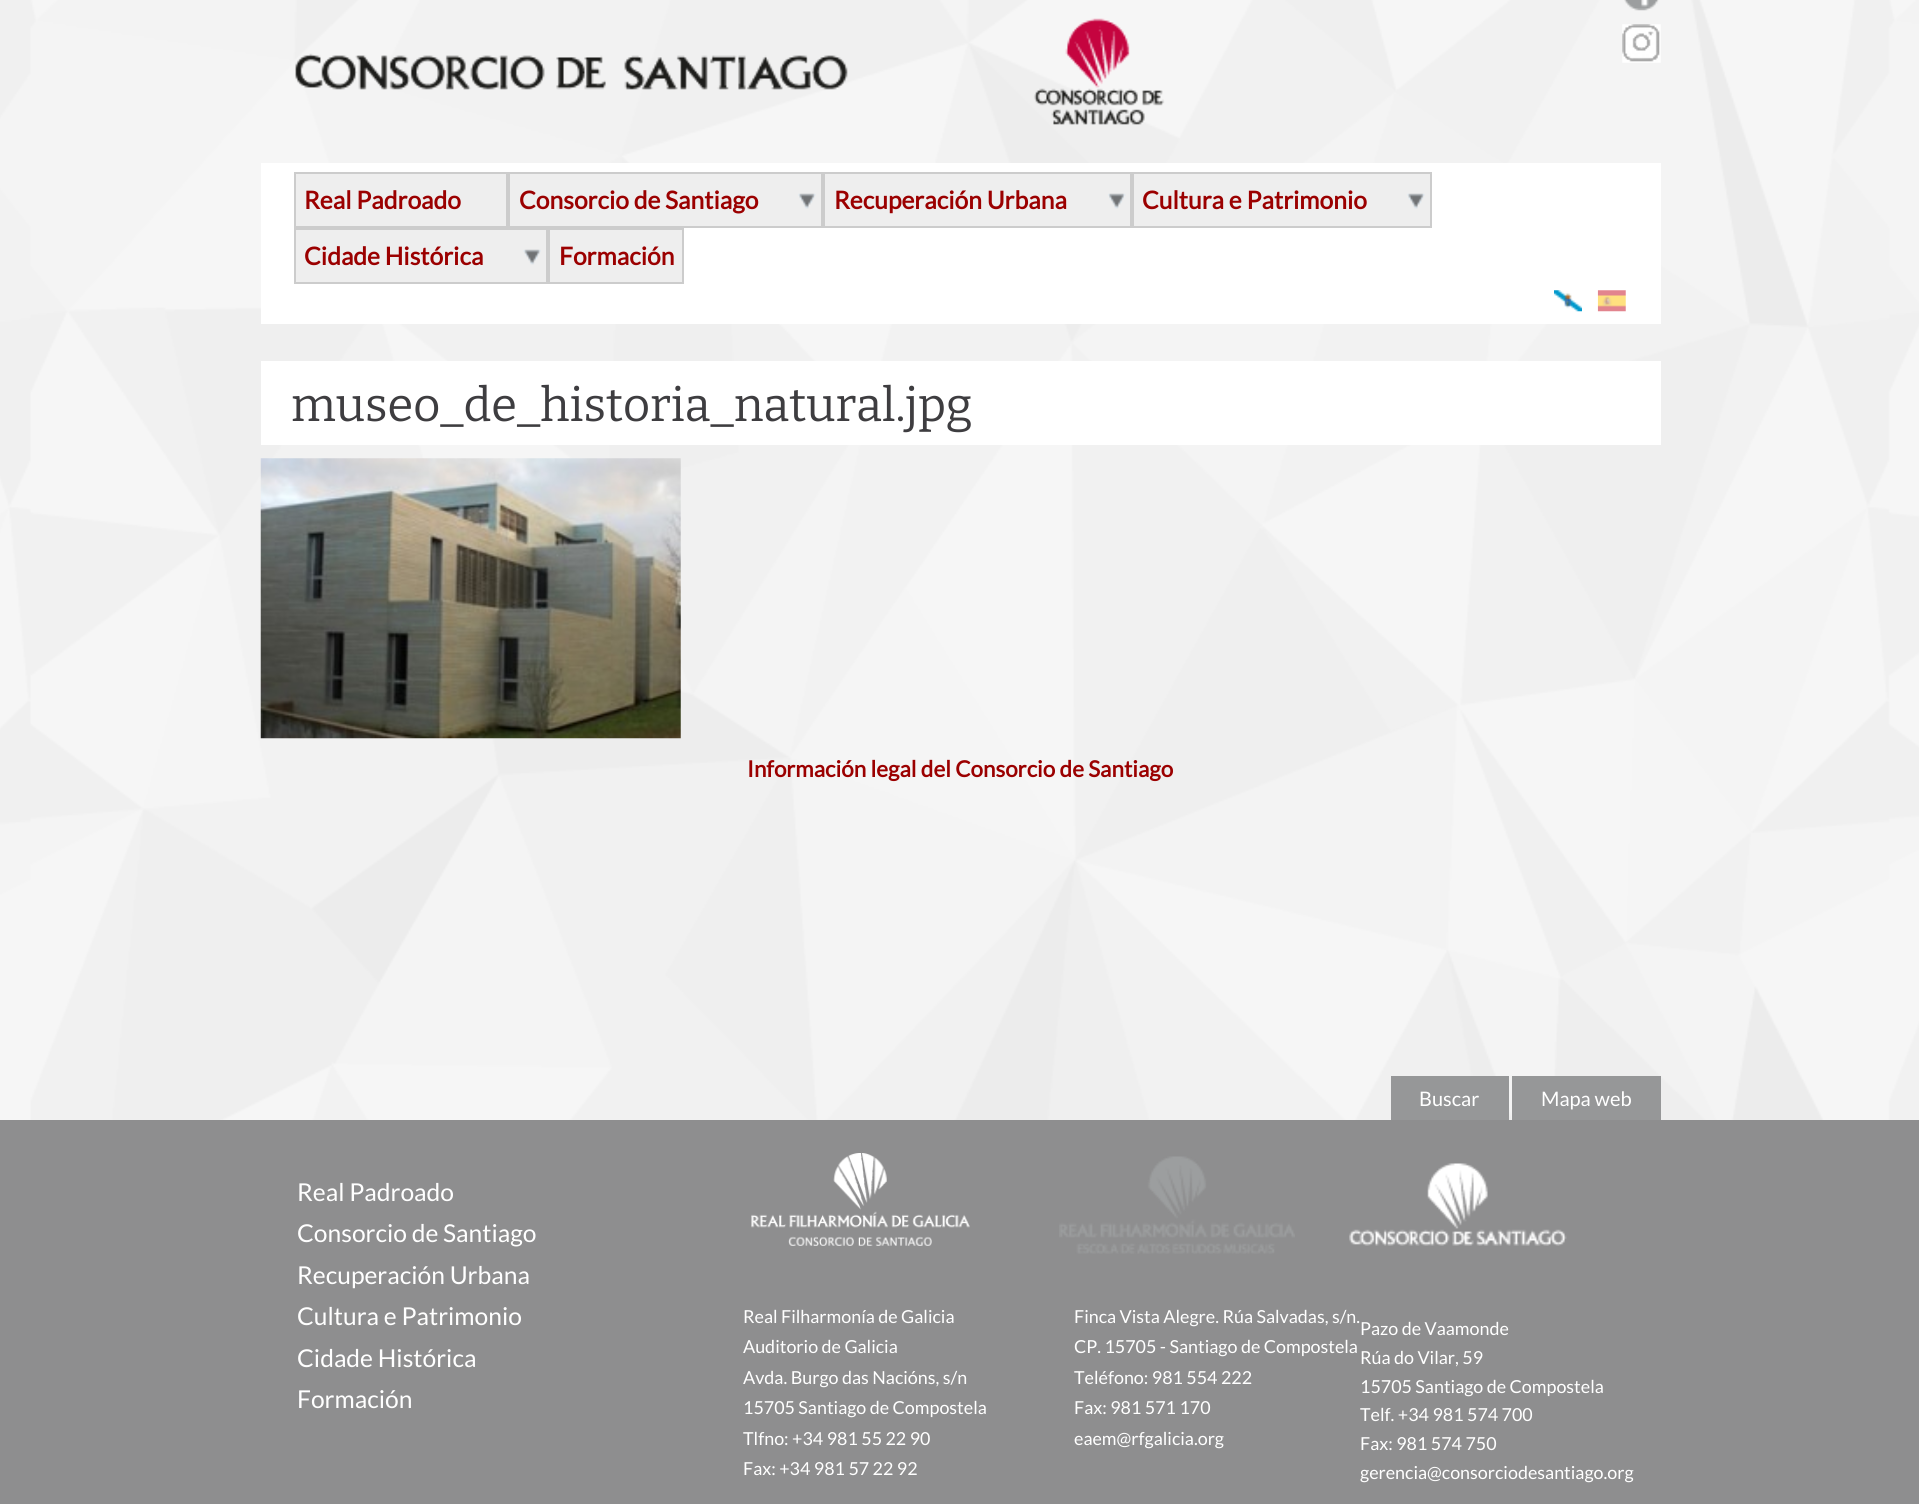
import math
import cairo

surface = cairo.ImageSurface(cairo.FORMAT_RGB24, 1919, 1504)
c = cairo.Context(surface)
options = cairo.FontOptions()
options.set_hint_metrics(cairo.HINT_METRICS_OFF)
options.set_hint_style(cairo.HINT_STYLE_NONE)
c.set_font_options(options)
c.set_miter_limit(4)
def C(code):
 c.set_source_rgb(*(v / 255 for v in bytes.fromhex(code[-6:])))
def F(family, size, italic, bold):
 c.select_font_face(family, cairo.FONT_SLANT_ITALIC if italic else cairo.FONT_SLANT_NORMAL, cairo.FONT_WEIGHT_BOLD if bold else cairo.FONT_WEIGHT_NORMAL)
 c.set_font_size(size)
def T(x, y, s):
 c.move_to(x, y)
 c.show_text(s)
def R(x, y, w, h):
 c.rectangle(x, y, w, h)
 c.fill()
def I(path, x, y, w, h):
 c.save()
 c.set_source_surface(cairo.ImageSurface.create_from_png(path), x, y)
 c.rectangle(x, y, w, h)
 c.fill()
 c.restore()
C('ffffff')
c.paint()
I('1.png',0,0,1919,1120)
I('2.png',295,18,870,107)
I('3.png',1624,0,35,11)
I('4.png',1622,24,39,39)
C('ffffff')
R(261,163,1400,161)
C('eeeeee')
c.rectangle(295,173,212,54)
c.fill_preserve()
C('cccccc')
c.stroke()
F('Lato',24.6,0,1)
C('9b0000')
T(304,209,'Real Padroado')
C('eeeeee')
R(510,174,311,52)
I('5.png',798,193,18,16)
c.rectangle(509,173,313,54)
C('cccccc')
c.stroke()
C('9b0000')
T(519,209,'Consorcio de Santiago')
C('eeeeee')
R(825,174,305,52)
I('6.png',1108,193,18,16)
c.rectangle(824,173,307,54)
C('cccccc')
c.stroke()
C('9b0000')
T(834,209,'Recuperación Urbana')
C('eeeeee')
R(1134,174,296,52)
I('7.png',1407,193,18,16)
c.rectangle(1133,173,298,54)
C('cccccc')
c.stroke()
C('9b0000')
T(1142,209,'Cultura e Patrimonio')
C('eeeeee')
R(296,230,250,52)
I('8.png',523,249,18,16)
c.rectangle(295,229,252,54)
C('cccccc')
c.stroke()
C('9b0000')
T(304,265,'Cidade Histórica')
C('eeeeee')
c.rectangle(549,229,134,54)
c.fill_preserve()
C('cccccc')
c.stroke()
C('9b0000')
T(559,265,'Formación')
I('9.png',1554,290,28,22)
I('10.png',1597,290,29,22)
C('ffffff')
R(261,361,1400,84)
F('Bitter',47,0,0)
C('3e3d40')
T(291,421,'museo_de_historia_natural.jpg')
I('11.png',260,458,421,281)
F('Lato',22.4,0,1)
C('9b0000')
T(747,777,'Información legal del Consorcio de Santiago')
C('969798')
R(1391,1076,118,44)
F('Lato',20,0,0)
C('ffffff')
T(1419,1106,'Buscar')
C('969798')
R(1512,1076,149,44)
C('ffffff')
T(1541,1106,'Mapa web')
C('8e8e8f')
R(0,1120,1919,384)
F('Lato',24.6,0,0)
C('ffffff')
T(297,1201,'Real Padroado')
T(297,1242,'Consorcio de Santiago')
T(297,1284,'Recuperación Urbana')
T(297,1325,'Cultura e Patrimonio')
T(297,1367,'Cidade Histórica')
T(297,1408,'Formación')
I('12.png',751,1153,219,93)
F('Lato',17.9,0,0)
T(743,1323,'Real Filharmonía de Galicia')
T(743,1353,'Auditorio de Galicia')
T(743,1384,'Avda. Burgo das Nacións, s/n')
T(743,1414,'15705 Santiago de Compostela')
T(743,1445,'Tlfno: +34 981 55 22 90')
T(743,1475,'Fax: +34 981 57 22 92')
I('13.png',1059,1156,236,98)
T(1074,1323,'Finca Vista Alegre. Rúa Salvadas, s/n.')
T(1074,1353,'CP. 15705 - Santiago de Compostela')
T(1074,1384,'Teléfono: 981 554 222')
T(1074,1414,'Fax: 981 571 170')
T(1074,1445,'eaem@rfgalicia.org')
I('14.png',1349,1163,218,83)
T(1360,1335,'Pazo de Vaamonde')
T(1360,1364,'Rúa do Vilar, 59')
T(1360,1393,'15705 Santiago de Compostela')
T(1360,1421,'Telf. +34 981 574 700')
T(1360,1450,'Fax: 981 574 750')
T(1360,1479,'gerencia@consorciodesantiago.org')
surface.write_to_png('o.png')
